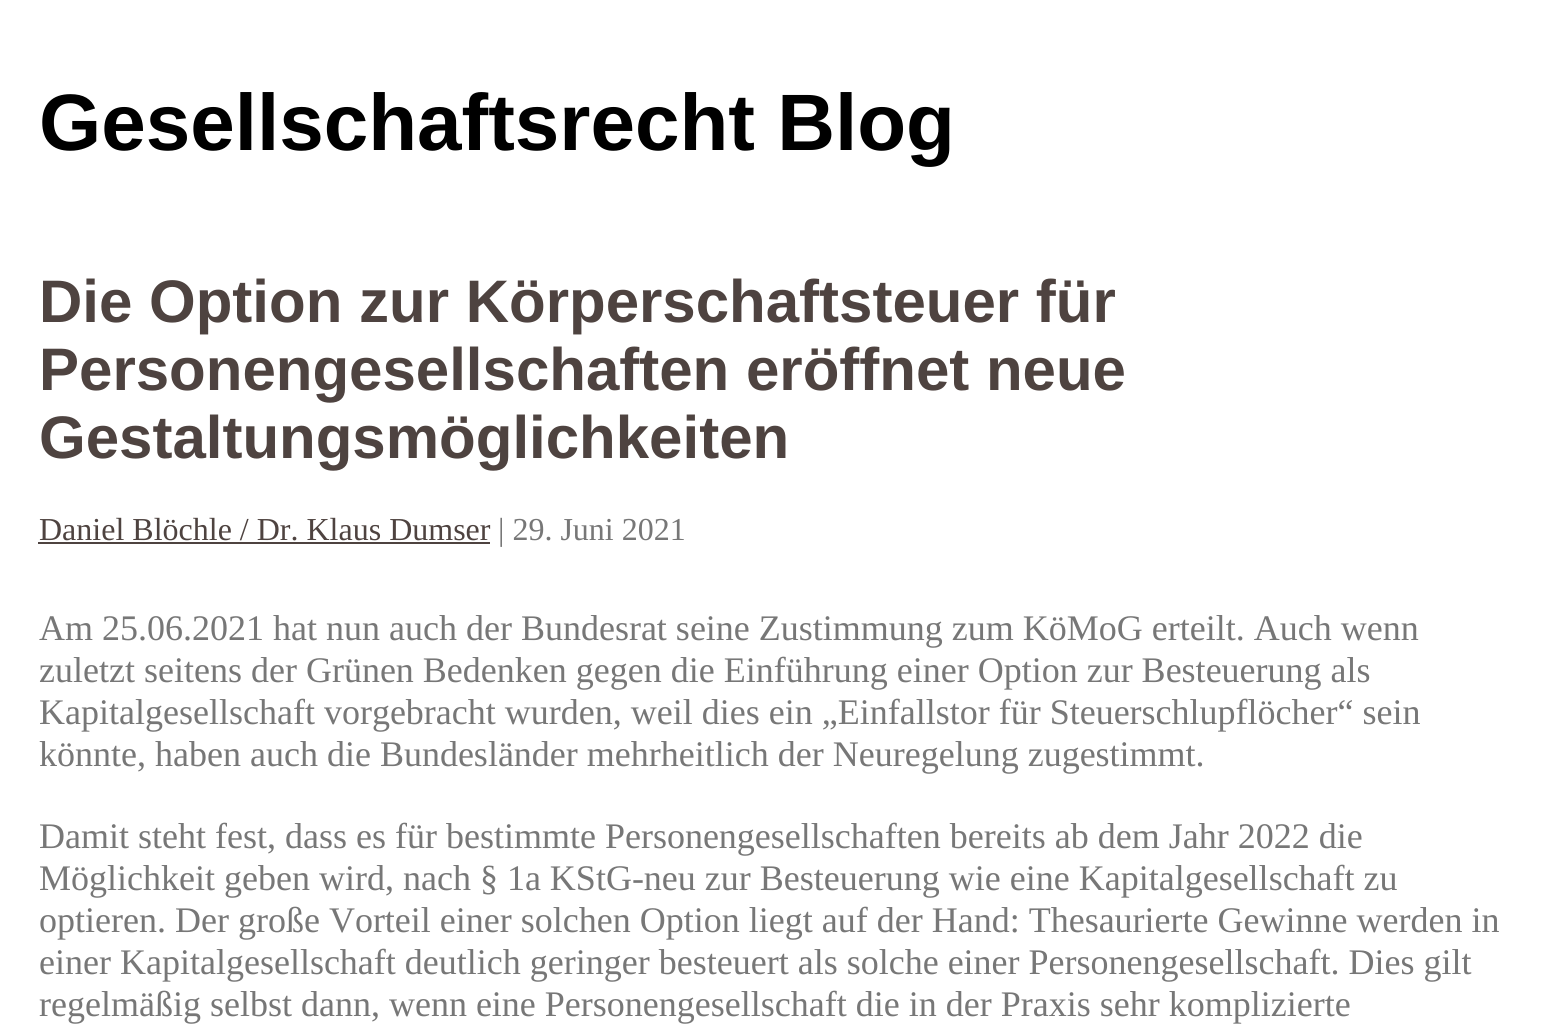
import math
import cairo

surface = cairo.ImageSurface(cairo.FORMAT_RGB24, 1556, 1033)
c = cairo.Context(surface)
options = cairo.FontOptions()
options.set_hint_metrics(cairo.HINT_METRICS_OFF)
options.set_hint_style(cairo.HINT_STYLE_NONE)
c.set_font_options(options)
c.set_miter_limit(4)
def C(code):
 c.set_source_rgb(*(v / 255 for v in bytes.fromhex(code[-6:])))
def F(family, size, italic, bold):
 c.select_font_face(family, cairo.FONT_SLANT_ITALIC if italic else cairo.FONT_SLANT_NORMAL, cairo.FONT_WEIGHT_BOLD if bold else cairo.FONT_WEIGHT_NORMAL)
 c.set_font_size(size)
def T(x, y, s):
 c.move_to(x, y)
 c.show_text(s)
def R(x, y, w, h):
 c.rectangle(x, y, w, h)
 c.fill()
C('ffffff')
c.paint()
F('Liberation Sans',80,0,1)
C('000000')
T(39,150,'Gesellschaftsrecht Blog')
F('Liberation Sans',60,0,1)
C('4e4340')
T(39,322,'Die Option zur Körperschaftsteuer für')
T(39,390,'Personengesellschaften eröffnet neue')
T(39,458,'Gestaltungsmöglichkeiten')
F('Liberation Serif',32,0,0)
T(39,540,'Daniel Blöchle / Dr. Klaus Dumser')
R(38,542,452,2)
C('777777')
T(498,540,'| 29. Juni 2021')
F('Liberation Serif',36,0,0)
T(39,640,'Am 25.06.2021 hat nun auch der Bundesrat seine Zustimmung zum KöMoG erteilt. Auch wenn')
T(39,682,'zuletzt seitens der Grünen Bedenken gegen die Einführung einer Option zur Besteuerung als')
T(39,724,'Kapitalgesellschaft vorgebracht wurden, weil dies ein „Einfallstor für Steuerschlupflöcher“ sein')
T(39,766,'könnte, haben auch die Bundesländer mehrheitlich der Neuregelung zugestimmt.')
T(39,848,'Damit steht fest, dass es für bestimmte Personengesellschaften bereits ab dem Jahr 2022 die')
T(39,890,'Möglichkeit geben wird, nach § 1a KStG-neu zur Besteuerung wie eine Kapitalgesellschaft zu')
T(39,932,'optieren. Der große Vorteil einer solchen Option liegt auf der Hand: Thesaurierte Gewinne werden in')
T(39,974,'einer Kapitalgesellschaft deutlich geringer besteuert als solche einer Personengesellschaft. Dies gilt')
T(39,1016,'regelmäßig selbst dann, wenn eine Personengesellschaft die in der Praxis sehr komplizierte')
surface.write_to_png('o.png')
